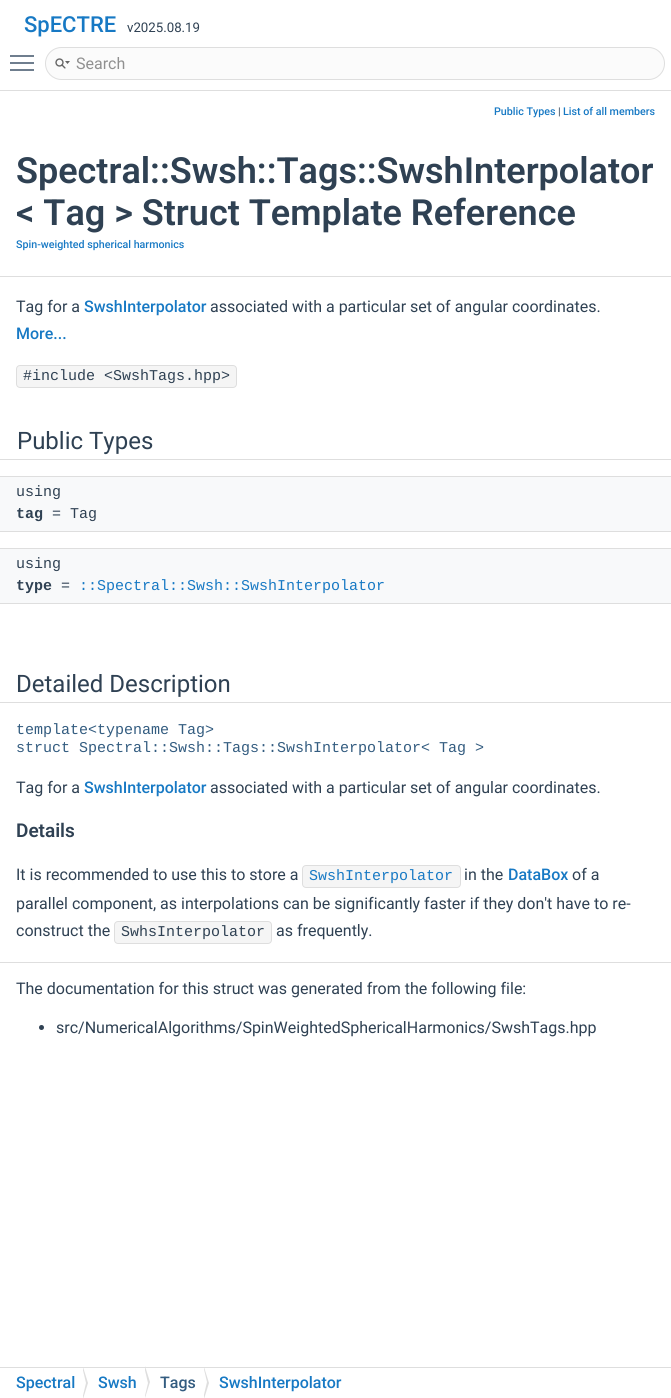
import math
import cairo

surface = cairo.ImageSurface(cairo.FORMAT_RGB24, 671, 1398)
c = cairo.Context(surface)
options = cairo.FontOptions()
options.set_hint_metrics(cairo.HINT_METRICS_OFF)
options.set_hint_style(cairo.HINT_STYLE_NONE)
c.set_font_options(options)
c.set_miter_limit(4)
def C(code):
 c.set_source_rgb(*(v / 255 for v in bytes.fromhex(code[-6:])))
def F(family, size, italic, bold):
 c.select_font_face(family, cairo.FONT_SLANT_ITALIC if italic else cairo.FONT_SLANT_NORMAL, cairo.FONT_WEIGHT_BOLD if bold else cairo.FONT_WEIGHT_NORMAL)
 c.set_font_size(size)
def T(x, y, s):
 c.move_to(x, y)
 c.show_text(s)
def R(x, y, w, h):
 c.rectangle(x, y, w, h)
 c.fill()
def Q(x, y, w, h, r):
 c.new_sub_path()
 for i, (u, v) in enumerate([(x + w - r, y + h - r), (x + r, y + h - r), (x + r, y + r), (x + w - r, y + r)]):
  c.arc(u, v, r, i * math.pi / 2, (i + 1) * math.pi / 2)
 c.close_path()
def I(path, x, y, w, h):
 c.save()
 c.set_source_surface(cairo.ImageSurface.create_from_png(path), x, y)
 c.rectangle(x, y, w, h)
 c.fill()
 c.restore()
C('ffffff')
c.paint()
C('dedede')
R(0,90,671,1)
F('Roboto Medium',22,0,0)
C('1779c4')
T(24,32,'SpECTRE')
F('Roboto',13.25,0,0)
C('2f4153')
T(127,32,'v2025.08.19')
C('6f7e8e')
R(10,62,24,2)
R(10,55,24,2)
R(10,69,24,2)
C('fbfbfb')
Q(45.5,47.5,619,32,16)
c.fill_preserve()
C('dedede')
c.set_line_width(1)
c.stroke()
I('1.png',55,58,15,11)
F('Roboto',16,0,0)
C('909090')
T(76,69,'Search')
C('dedede')
R(0,276,671,1)
F('Roboto Medium',10.7,0,0)
C('1779c4')
T(494,115,'Public Types')
F('Roboto',10.7,0,0)
C('2f4153')
T(558,115,'|')
F('Roboto Medium',10.7,0,0)
C('1779c4')
T(563,115,'List of all members')
F('Roboto SemiBold',36,0,0)
C('2f4153')
T(16,183,'Spectral::Swsh::Tags::SwshInterpolator')
T(16,225,'< Tag > Struct Template Reference')
F('Roboto Medium',10.7,0,0)
C('1779c4')
T(16,248,'Spin-weighted spherical harmonics')
F('Roboto',16,0,0)
C('2f4153')
T(16,312,'Tag for a')
F('Roboto Medium',16,0,0)
C('1779c4')
T(84,312,'SwshInterpolator')
F('Roboto',16,0,0)
C('2f4153')
T(210,312,'associated with a particular set of angular coordinates.')
F('Roboto Medium',16,0,0)
C('1779c4')
T(16,339,'More...')
C('f5f5f5')
Q(16.5,365.5,220,22,3.5)
c.fill_preserve()
C('dedede')
c.stroke()
F('Liberation Mono',15,0,0)
C('2f4153')
T(23,380,'#include <SwshTags.hpp>')
C('dedede')
c.new_path()
c.move_to(-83,420)
c.line_to(-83,460)
c.line_to(554,460)
c.line_to(554,459)
c.line_to(17,459)
c.line_to(17,420)
c.close_path()
c.fill()
c.new_path()
c.move_to(117,459)
c.line_to(117,460)
c.line_to(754,460)
c.line_to(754,420)
c.line_to(654,420)
c.line_to(654,459)
c.close_path()
c.fill()
C('ffffff')
R(0,420,17,39)
R(654,420,17,39)
F('Roboto',24,0,0)
C('2f4153')
T(17,449,'Public Types')
C('f8f9fa')
R(0,477,671,54)
C('dedede')
R(0,476,671,1)
F('Liberation Mono',15,0,0)
C('2f4153')
T(16,496,'using')
C('dedede')
R(0,531,671,1)
F('Liberation Mono',15,0,1)
C('2f4153')
T(16,518,'tag')
F('Liberation Mono',15,0,0)
T(52,518,'= Tag')
C('f8f9fa')
R(0,549,671,54)
C('dedede')
R(0,548,671,1)
C('2f4153')
T(16,568,'using')
C('dedede')
R(0,603,671,1)
F('Liberation Mono',15,0,1)
C('2f4153')
T(16,590,'type')
F('Liberation Mono',15,0,0)
T(61,590,'=')
C('1779c4')
T(79,590,'::Spectral::Swsh::SwshInterpolator')
C('dedede')
c.new_path()
c.move_to(-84,663)
c.line_to(-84,703)
c.line_to(555,703)
c.line_to(555,702)
c.line_to(16,702)
c.line_to(16,663)
c.close_path()
c.fill()
c.new_path()
c.move_to(116,702)
c.line_to(116,703)
c.line_to(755,703)
c.line_to(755,663)
c.line_to(655,663)
c.line_to(655,702)
c.close_path()
c.fill()
C('ffffff')
R(0,663,16,39)
R(655,663,16,39)
F('Roboto',24,0,0)
C('2f4153')
T(16,692,'Detailed Description')
F('Liberation Mono',15,0,0)
C('335c80')
T(16,734,'template<typename Tag>')
T(16,752,'struct Spectral::Swsh::Tags::SwshInterpolator< Tag >')
F('Roboto',16,0,0)
C('2f4153')
T(16,793,'Tag for a')
F('Roboto Medium',16,0,0)
C('1779c4')
T(84,793,'SwshInterpolator')
F('Roboto',16,0,0)
C('2f4153')
T(210,793,'associated with a particular set of angular coordinates.')
F('Roboto SemiBold',19,0,0)
T(16,837,'Details')
F('Roboto',16,0,0)
T(16,880,'It is recommended to use this to store a')
C('f5f5f5')
Q(302.5,865.5,158,22,3.5)
c.fill_preserve()
C('dedede')
c.stroke()
F('Liberation Mono',15,0,0)
C('1779c4')
T(309,880,'SwshInterpolator')
F('Roboto',16,0,0)
C('2f4153')
T(464,880,'in the')
F('Roboto Medium',16,0,0)
C('1779c4')
T(508,880,'DataBox')
F('Roboto',16,0,0)
C('2f4153')
T(572,880,'of a')
T(16,909,'parallel component, as interpolations can be significantly faster if they don\'t have to re-')
T(16,936,'construct the')
C('f5f5f5')
Q(114.5,921.5,157,22,3.5)
c.fill_preserve()
C('dedede')
c.stroke()
F('Liberation Mono',15,0,0)
C('2f4153')
T(121,936,'SwhsInterpolator')
F('Roboto',16,0,0)
T(276,936,'as frequently.')
C('dedede')
R(0,962,16,1)
R(16,962,655,1)
C('2f4153')
T(16,994,'The documentation for this struct was generated from the following file:')
c.new_path()
c.arc(41.5,1027.5,2.5,0,2 * math.pi)
c.fill()
T(56,1033,'src/NumericalAlgorithms/SpinWeightedSphericalHarmonics/SwshTags.hpp')
C('dedede')
R(0,1367,671,1)
F('Roboto Medium',16,0,0)
C('1779c4')
T(16,1388,'Spectral')
C('dedede')
c.new_path()
c.move_to(83,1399)
c.line_to(83,1367)
c.line_to(88,1383)
c.close_path()
c.fill()
c.save()
c.rectangle(0,1368,671,30)
c.clip()
C('ffffff')
c.new_path()
c.move_to(81,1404)
c.line_to(81,1362)
c.line_to(86,1383)
c.close_path()
c.fill()
c.restore()
C('1779c4')
T(98,1388,'Swsh')
C('dedede')
c.new_path()
c.move_to(145,1398)
c.line_to(145,1366)
c.line_to(150,1382)
c.close_path()
c.fill()
c.save()
c.rectangle(0,1368,671,30)
c.clip()
C('ffffff')
c.new_path()
c.move_to(143,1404)
c.line_to(143,1362)
c.line_to(148,1383)
c.close_path()
c.fill()
c.restore()
C('335c80')
T(160,1388,'Tags')
C('dedede')
c.new_path()
c.move_to(204,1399)
c.line_to(204,1367)
c.line_to(209,1383)
c.close_path()
c.fill()
c.save()
c.rectangle(0,1368,671,30)
c.clip()
C('ffffff')
c.new_path()
c.move_to(202,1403)
c.line_to(202,1361)
c.line_to(207,1382)
c.close_path()
c.fill()
c.restore()
C('1779c4')
T(219,1388,'SwshInterpolator')
surface.write_to_png('o.png')
